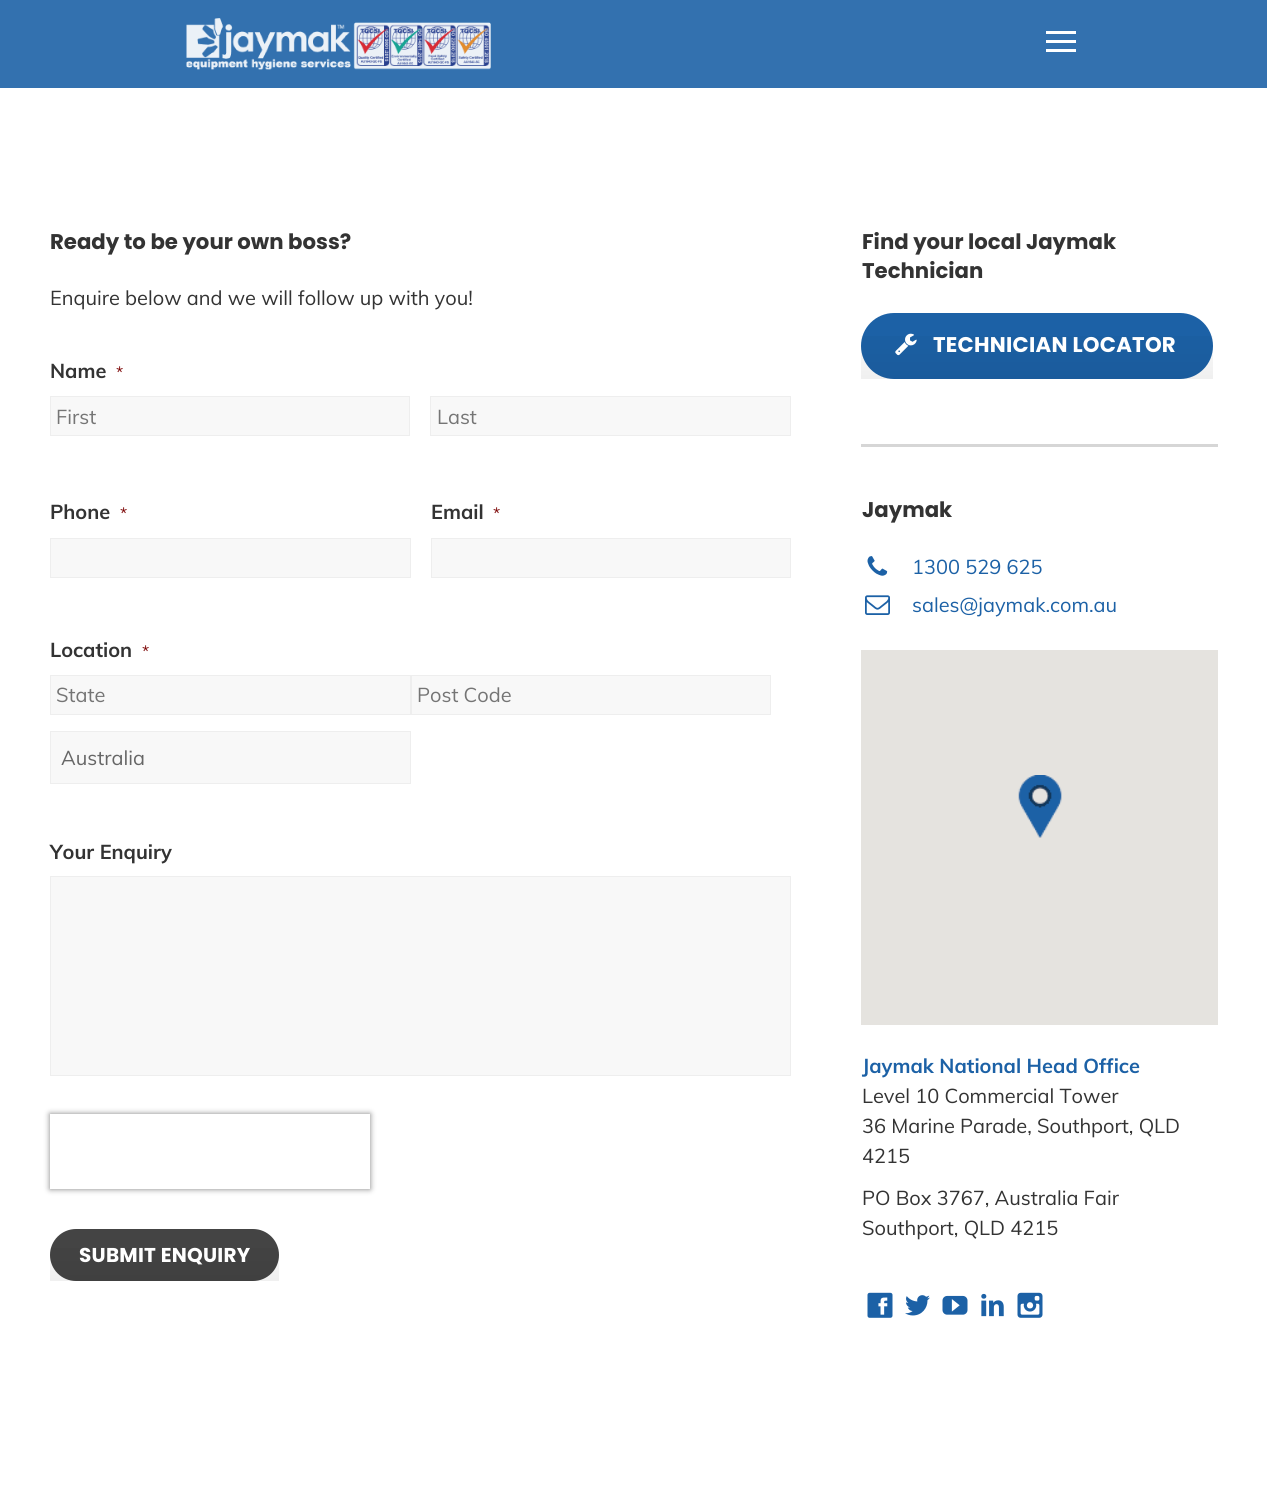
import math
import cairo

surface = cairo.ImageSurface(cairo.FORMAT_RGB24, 1267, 1502)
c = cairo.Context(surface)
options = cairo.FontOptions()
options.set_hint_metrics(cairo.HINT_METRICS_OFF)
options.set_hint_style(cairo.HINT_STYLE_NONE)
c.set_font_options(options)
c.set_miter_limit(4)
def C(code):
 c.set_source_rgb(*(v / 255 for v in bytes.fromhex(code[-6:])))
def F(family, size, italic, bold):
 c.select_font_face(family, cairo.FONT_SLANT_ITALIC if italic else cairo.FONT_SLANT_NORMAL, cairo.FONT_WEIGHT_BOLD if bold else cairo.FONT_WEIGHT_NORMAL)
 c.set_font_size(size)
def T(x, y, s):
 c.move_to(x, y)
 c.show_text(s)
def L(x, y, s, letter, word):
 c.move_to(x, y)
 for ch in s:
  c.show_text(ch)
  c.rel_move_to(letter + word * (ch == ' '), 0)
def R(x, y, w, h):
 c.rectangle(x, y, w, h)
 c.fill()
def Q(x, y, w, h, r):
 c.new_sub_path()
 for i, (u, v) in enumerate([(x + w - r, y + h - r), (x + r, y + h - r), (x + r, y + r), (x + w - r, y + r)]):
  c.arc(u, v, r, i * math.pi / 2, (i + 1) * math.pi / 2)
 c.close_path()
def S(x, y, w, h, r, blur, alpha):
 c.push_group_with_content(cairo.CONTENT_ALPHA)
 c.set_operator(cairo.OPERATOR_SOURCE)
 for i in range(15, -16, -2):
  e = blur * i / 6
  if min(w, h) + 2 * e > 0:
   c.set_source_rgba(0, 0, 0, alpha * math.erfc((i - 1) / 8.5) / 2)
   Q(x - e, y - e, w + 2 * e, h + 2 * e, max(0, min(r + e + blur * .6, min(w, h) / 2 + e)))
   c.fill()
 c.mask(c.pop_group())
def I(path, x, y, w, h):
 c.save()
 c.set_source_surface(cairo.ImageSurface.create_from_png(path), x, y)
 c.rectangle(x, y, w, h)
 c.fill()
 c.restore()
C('ffffff')
c.paint()
C('3371af')
R(0,0,1267,88)
I('1.png',186,18,305,52)
C('ffffff')
R(1046,31,30,3)
R(1046,40,30,3)
R(1046,49,30,3)
F('Poppins',21.25,0,1)
C('333333')
T(50,249,'Ready to be your own boss?')
F('Muli',20,0,0)
T(50,305,'Enquire below and we will follow up with you!')
F('Muli',20,0,1)
T(50,378,'Name')
F('Muli',16,0,0)
C('790000')
T(116,378,'*')
C('f8f8f8')
c.rectangle(50.5,396.5,359,39)
c.fill_preserve()
C('eeeeee')
c.set_line_width(1)
c.stroke()
F('Muli',20,0,0)
C('757575')
T(56,424,'First')
C('f8f8f8')
c.rectangle(430.5,396.5,360,39)
c.fill_preserve()
C('eeeeee')
c.stroke()
C('757575')
T(437,424,'Last')
F('Muli',20,0,1)
C('333333')
T(50,519,'Phone')
F('Muli',16,0,0)
C('790000')
T(120,519,'*')
C('f8f8f8')
c.rectangle(50.5,538.5,360,39)
c.fill_preserve()
C('eeeeee')
c.stroke()
F('Muli',20,0,1)
C('333333')
T(431,519,'Email')
F('Muli',16,0,0)
C('790000')
T(493,519,'*')
C('f8f8f8')
c.rectangle(431.5,538.5,359,39)
c.fill_preserve()
C('eeeeee')
c.stroke()
F('Muli',20,0,1)
C('333333')
T(50,657,'Location')
F('Muli',16,0,0)
C('790000')
T(142,657,'*')
C('f8f8f8')
c.rectangle(50.5,675.5,360,39)
c.fill_preserve()
C('eeeeee')
c.stroke()
F('Muli',20,0,0)
C('757575')
T(56,702,'State')
C('f8f8f8')
c.rectangle(411.5,675.5,359,39)
c.fill_preserve()
C('eeeeee')
c.stroke()
C('757575')
T(417,702,'Post Code')
C('f8f8f8')
c.rectangle(50.5,731.5,360,52)
c.fill_preserve()
C('eeeeee')
c.stroke()
C('666666')
T(61,765,'Australia')
F('Muli',20,0,1)
C('333333')
T(50,859,'Your Enquiry')
C('f8f8f8')
c.rectangle(50.5,876.5,740,199)
c.fill_preserve()
C('eeeeee')
c.stroke()
c.save()
c.set_fill_rule(cairo.FILL_RULE_EVEN_ODD)
c.new_path()
c.move_to(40,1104)
c.line_to(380,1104)
c.line_to(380,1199)
c.line_to(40,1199)
c.close_path()
c.move_to(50,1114)
c.line_to(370,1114)
c.line_to(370,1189)
c.line_to(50,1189)
c.close_path()
c.clip()
C('808080')
S(50,1114,320,75,0,3,1)
c.restore()
C('444444')
Q(50,1229,229,52,26)
c.fill()
gradient = cairo.LinearGradient(164,1229,164,1281)
gradient.add_color_stop_rgba(0,0,0,0,0)
gradient.add_color_stop_rgba(1,0,0,0,.06)
c.set_source(gradient)
R(50,1248,229,33)
F('Poppins',20,0,1)
C('ffffff')
L(79,1262,'SUBMIT ENQUIRY',.25,0)
F('Poppins',21.25,0,1)
C('333333')
T(862,249,'Find your local Jaymak')
T(862,278,'Technician')
C('1c61a6')
Q(861,313,352,66,33)
c.fill()
gradient = cairo.LinearGradient(1037,312,1037,379)
gradient.add_color_stop_rgba(0,0,0,0,0)
gradient.add_color_stop_rgba(1,0,0,0,.06)
c.set_source(gradient)
R(861,336,352,43)
I('2.png',895,333,22,23)
C('ffffff')
L(933,352,'TECHNICIAN LOCATOR',.25,0)
C('d6d6d6')
R(861,444,357,3)
C('333333')
T(862,517,'Jaymak')
I('3.png',867,556,21,20)
F('Muli',20,0,0)
C('1c61a6')
T(912,574,'1300 529 625')
I('4.png',865,595,25,20)
T(912,612,'sales@jaymak.com.au')
C('e5e3df')
R(861,650,357,375)
I('5.png',1018,775,44,63)
F('Muli',20,0,1)
C('1c61a6')
T(862,1073,'Jaymak National Head Office')
F('Muli',20,0,0)
C('333333')
T(862,1103,'Level 10 Commercial Tower')
T(862,1133,'36 Marine Parade, Southport, QLD')
T(862,1163,'4215')
T(862,1205,'PO Box 3767, Australia Fair')
T(862,1235,'Southport, QLD 4215')
I('6.png',867,1292,26,26)
I('7.png',905,1295,25,21)
I('8.png',942,1295,26,20)
I('9.png',981,1293,23,24)
I('10.png',1017,1292,26,26)
surface.write_to_png('o.png')
